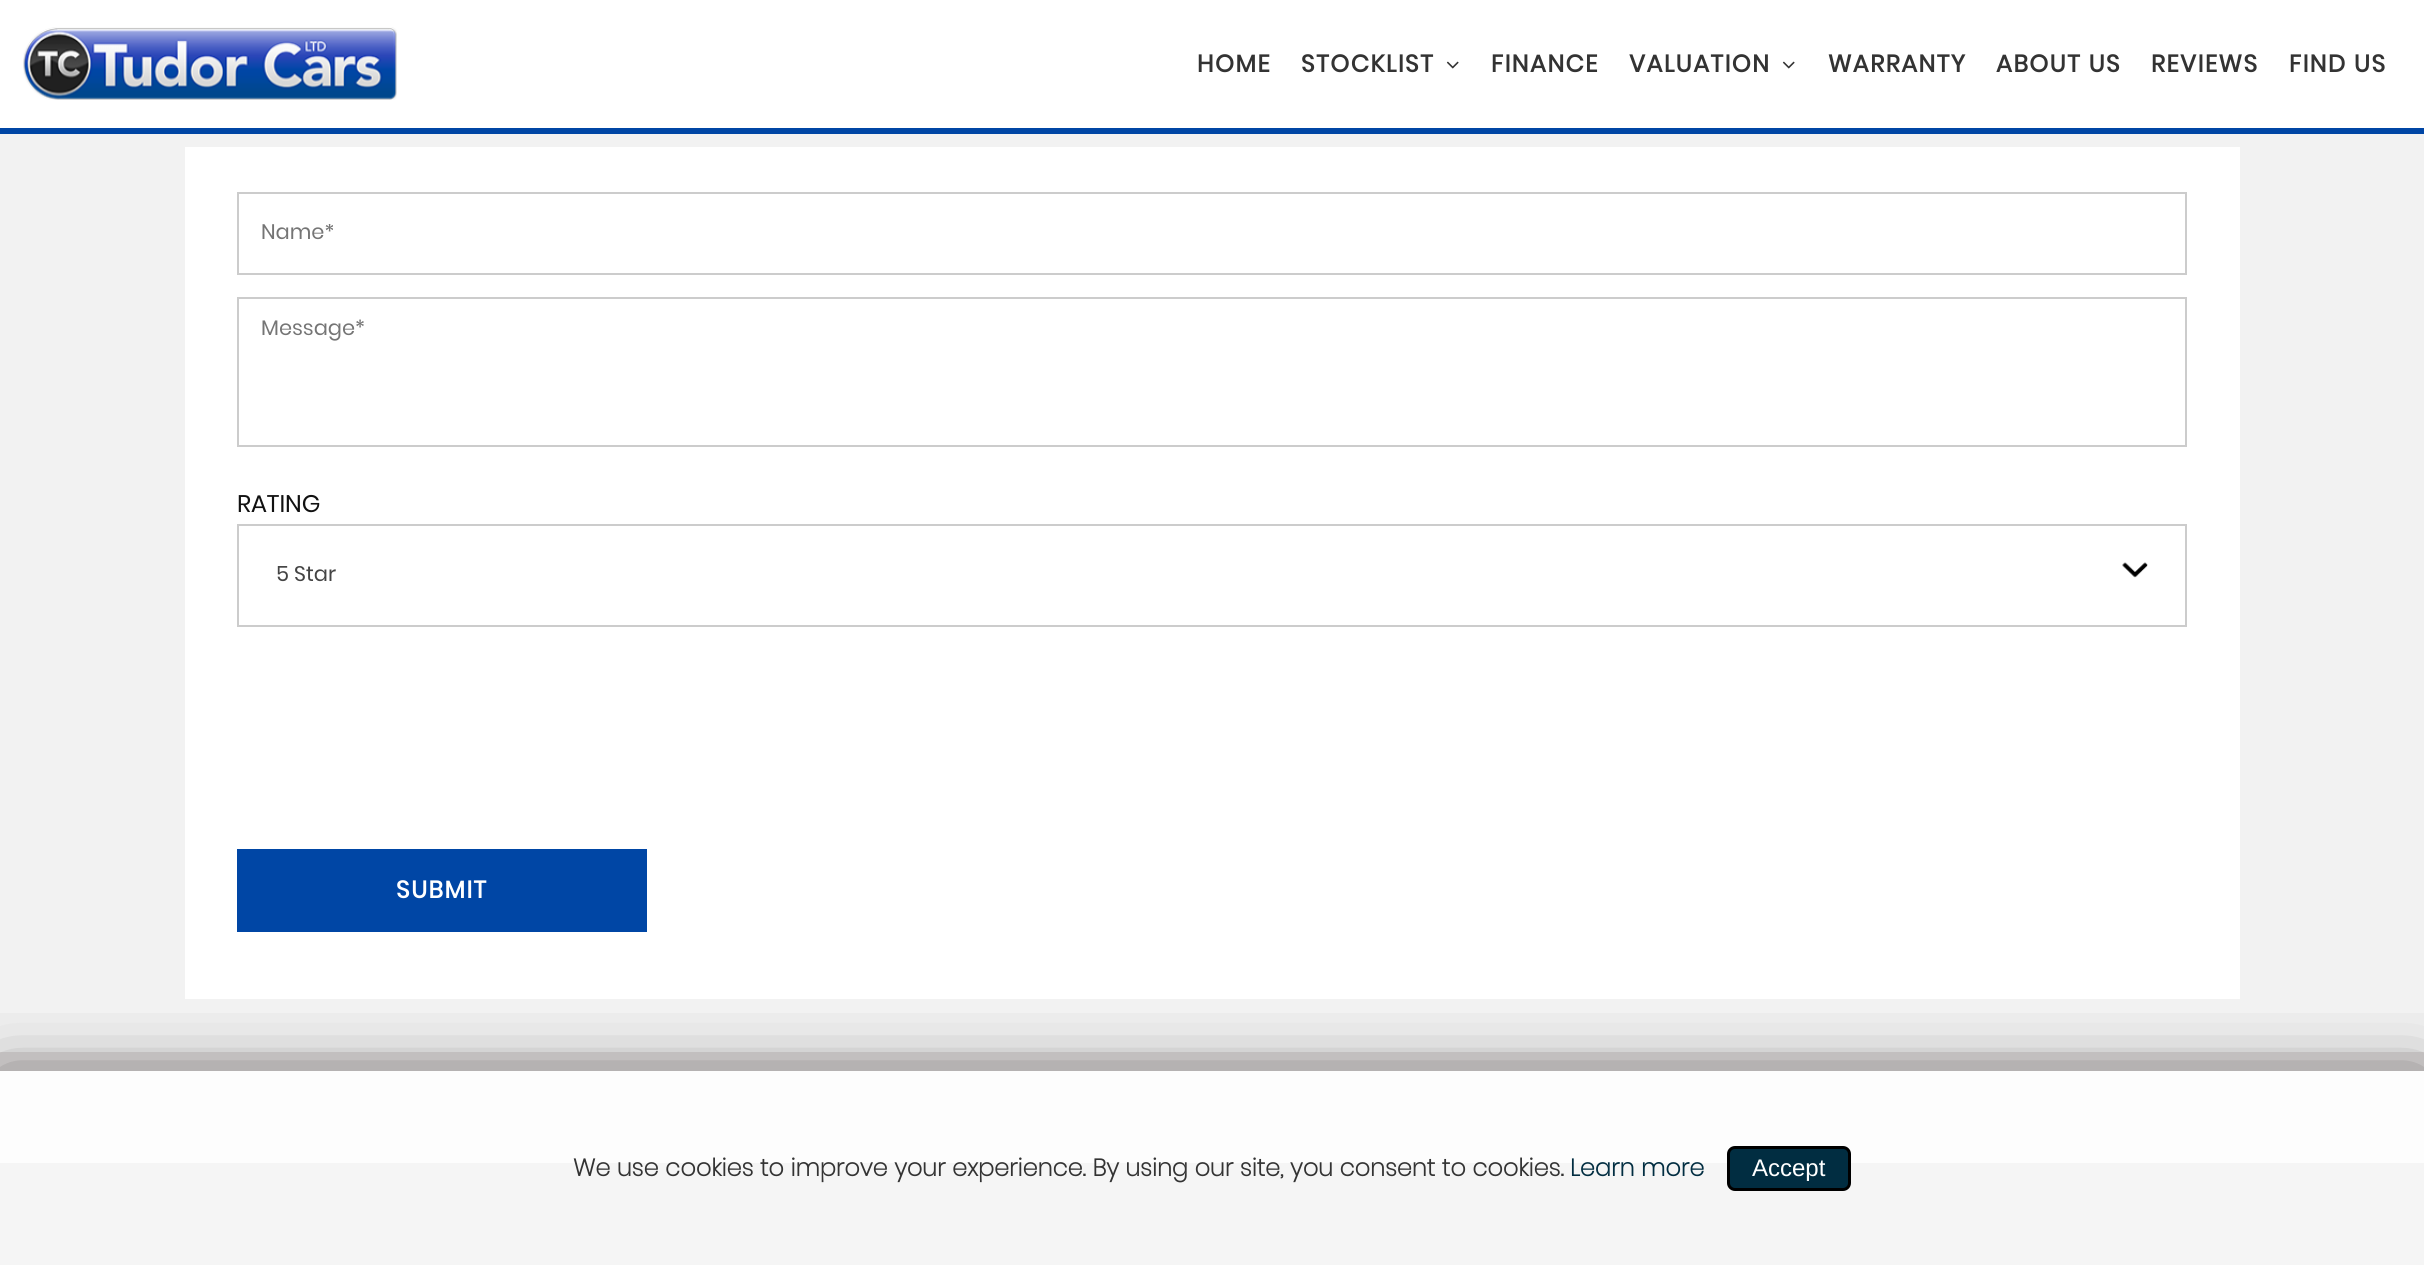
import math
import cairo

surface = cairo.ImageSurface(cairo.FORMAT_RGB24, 2424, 1265)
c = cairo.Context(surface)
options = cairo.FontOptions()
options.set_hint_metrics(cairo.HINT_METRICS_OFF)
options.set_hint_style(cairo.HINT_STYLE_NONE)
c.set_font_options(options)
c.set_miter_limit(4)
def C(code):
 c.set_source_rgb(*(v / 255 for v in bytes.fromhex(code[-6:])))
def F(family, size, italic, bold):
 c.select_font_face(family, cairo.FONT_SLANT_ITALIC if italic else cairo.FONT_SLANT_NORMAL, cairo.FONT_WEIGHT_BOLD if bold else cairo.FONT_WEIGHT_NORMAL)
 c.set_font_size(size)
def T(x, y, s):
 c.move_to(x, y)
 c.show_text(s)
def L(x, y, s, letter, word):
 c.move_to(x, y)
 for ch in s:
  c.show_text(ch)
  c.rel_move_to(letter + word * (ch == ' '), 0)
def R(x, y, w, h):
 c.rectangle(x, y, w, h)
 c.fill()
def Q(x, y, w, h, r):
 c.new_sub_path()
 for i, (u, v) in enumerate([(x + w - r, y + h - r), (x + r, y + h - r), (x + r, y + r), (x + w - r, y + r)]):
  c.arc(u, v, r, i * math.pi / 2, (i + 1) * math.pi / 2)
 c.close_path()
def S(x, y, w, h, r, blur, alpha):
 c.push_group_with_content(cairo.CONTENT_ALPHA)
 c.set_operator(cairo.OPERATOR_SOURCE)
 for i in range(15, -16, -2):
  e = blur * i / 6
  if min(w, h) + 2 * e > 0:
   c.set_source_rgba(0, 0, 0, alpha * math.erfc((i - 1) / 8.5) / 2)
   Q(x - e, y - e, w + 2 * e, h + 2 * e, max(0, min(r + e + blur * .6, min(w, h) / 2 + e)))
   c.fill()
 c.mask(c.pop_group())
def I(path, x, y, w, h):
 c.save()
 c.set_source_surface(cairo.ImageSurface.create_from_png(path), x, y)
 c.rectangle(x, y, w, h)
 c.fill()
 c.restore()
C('f2f2f2')
c.paint()
C('ffffff')
R(0,0,2424,128)
C('0046a5')
R(0,128,2424,6)
I('1.png',23,27,374,73)
F('Poppins',24,0,1)
C('333333')
L(1197,72,'HOME',1.5,0)
L(1301,72,'STOCKLIST',1.5,0)
I('2.png',1446,61,13,8)
L(1491,72,'FINANCE',1.5,0)
L(1629,72,'VALUATION',1.5,0)
I('2.png',1782,61,13,8)
L(1828,72,'WARRANTY',1.5,0)
L(1996,72,'ABOUT US',1.5,0)
L(2151,72,'REVIEWS',1.5,0)
L(2289,72,'FIND US',1.5,0)
C('ffffff')
R(185,147,2055,852)
c.rectangle(238,193,1948,81)
C('cccccc')
c.stroke()
c.save()
c.rectangle(261,224,1902,21)
c.clip()
F('Poppins',21,0,0)
C('757575')
T(261,239,'Name*')
c.restore()
c.rectangle(238,298,1948,148)
c.stroke()
F('Poppins',21,0,0)
C('757575')
T(261,335,'Message*')
F('Poppins',24,0,0)
C('111111')
T(237,512,'RATING')
c.rectangle(238,525,1948,101)
C('cccccc')
c.stroke()
F('Poppins',21,0,0)
C('444444')
T(276,581,'5 Star')
I('3.png',2122,562,26,16)
C('0046a5')
R(237,849,410,83)
F('Poppins',24,0,1)
C('ffffff')
L(396,898,'SUBMIT',1.5,0)
C('dedada')
R(0,1052,2424,19)
C('fdfdfd')
R(0,1071,2424,92)
C('f5f5f5')
R(0,1163,2424,102)
c.save()
c.rectangle(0,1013,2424,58)
c.clip()
C('000000')
S(0,1079,2424,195,0,37.5,.5)
c.restore()
F('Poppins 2',24,0,1)
C('333333')
T(573,1176,'We use cookies to improve your experience. By using our site, you consent to cookies.')
C('012d41')
T(1570,1176,'Learn more')
Q(1728.5,1147.5,121,42,6.5)
c.fill_preserve()
C('000000')
c.set_line_width(3)
c.stroke()
F('Liberation Sans',24,0,0)
C('ffffff')
T(1752,1176,'Accept')
surface.write_to_png('o.png')
